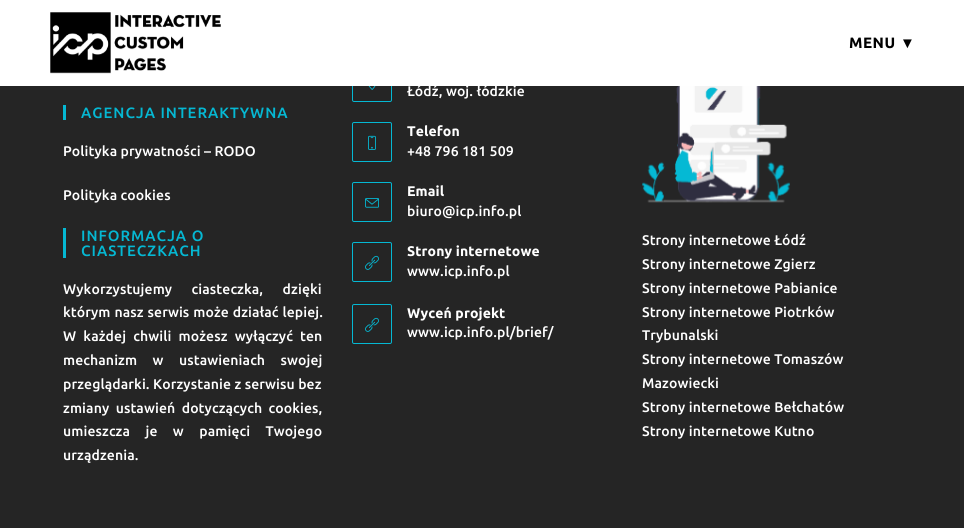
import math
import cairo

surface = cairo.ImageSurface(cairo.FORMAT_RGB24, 964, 528)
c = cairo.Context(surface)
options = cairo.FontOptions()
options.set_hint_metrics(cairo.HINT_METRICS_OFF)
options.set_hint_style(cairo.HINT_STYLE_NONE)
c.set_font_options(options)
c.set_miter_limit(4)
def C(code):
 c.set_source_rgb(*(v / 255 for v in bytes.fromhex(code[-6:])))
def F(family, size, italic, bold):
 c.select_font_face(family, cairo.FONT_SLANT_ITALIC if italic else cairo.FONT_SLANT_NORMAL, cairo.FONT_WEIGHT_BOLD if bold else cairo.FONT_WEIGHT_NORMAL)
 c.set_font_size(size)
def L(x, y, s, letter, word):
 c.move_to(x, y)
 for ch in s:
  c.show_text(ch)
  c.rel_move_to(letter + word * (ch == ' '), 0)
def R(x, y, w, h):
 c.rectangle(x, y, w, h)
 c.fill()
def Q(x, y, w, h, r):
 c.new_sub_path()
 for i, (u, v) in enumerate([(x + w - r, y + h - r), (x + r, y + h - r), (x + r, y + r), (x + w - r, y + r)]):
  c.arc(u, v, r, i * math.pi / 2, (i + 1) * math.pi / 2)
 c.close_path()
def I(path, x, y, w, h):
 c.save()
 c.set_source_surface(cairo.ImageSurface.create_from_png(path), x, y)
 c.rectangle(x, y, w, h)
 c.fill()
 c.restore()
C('252525')
c.paint()
Q(352.5,62.5,39,39,1.5)
C('05b8d3')
c.set_line_width(1)
c.stroke()
C('ffffff')
R(0,0,964,86)
I('1.png',50,12,171,62)
F('Ubuntu',15,0,1)
C('000000')
L(849,48,'MENU',.5,0)
F('Liberation Serif',15,0,1)
L(900,48,'▼',.5,0)
C('05b8d3')
R(63,105,3,15)
F('Ubuntu Medium',15,0,0)
L(81,118,'AGENCJA INTERAKTYWNA',1,0)
F('Ubuntu Medium',14,0,0)
C('ffffff')
L(63,156,'Polityka prywatności – RODO',.1,0)
L(63,200,'Polityka cookies',.1,0)
C('05b8d3')
R(63,228,3,30)
F('Ubuntu Medium',15,0,0)
L(81,241,'INFORMACJA O',1,0)
L(81,256,'CIASTECZKACH',1,0)
F('Ubuntu Medium',14,0,0)
C('ffffff')
L(63,294,'Wykorzystujemy ciasteczka, dzięki',.1,16)
L(63,317,'którym nasz serwis może działać lepiej.',.1,.5)
L(63,341,'W każdej chwili możesz wyłączyć ten',.1,3.75)
L(63,365,'mechanizm w ustawieniach swojej',.1,12)
L(63,389,'przeglądarki. Korzystanie z serwisu bez',.1,0)
L(63,413,'zmiany ustawień dotyczących cookies,',.1,3)
L(63,436,'umieszcza je w pamięci Twojego',.1,12)
L(63,460,'urządzenia.',.1,0)
I('2.png',368,86,8,4)
L(407,96,'Łódź, woj. łódzkie',.1,0)
Q(352.5,122.5,39,39,1.5)
C('05b8d3')
c.stroke()
I('3.png',368,135,8,15)
F('Ubuntu',14,0,1)
C('ffffff')
L(407,136,'Telefon',.1,0)
F('Ubuntu Medium',14,0,0)
L(407,156,'+48 796 181 509',.1,0)
Q(352.5,182.5,39,39,1.5)
C('05b8d3')
c.stroke()
I('4.png',365,198,14,10)
F('Ubuntu',14,0,1)
C('ffffff')
L(407,196,'Email',.1,0)
F('Ubuntu Medium',14,0,0)
L(407,216,'biuro@icp.info.pl',.1,0)
Q(352.5,242.5,39,39,1.5)
C('05b8d3')
c.stroke()
I('5.png',365,255,14,15)
F('Ubuntu',14,0,1)
C('ffffff')
L(407,256,'Strony internetowe',.1,0)
F('Ubuntu Medium',14,0,0)
L(407,276,'www.icp.info.pl',.1,0)
Q(352.5,304.5,39,39,1.5)
C('05b8d3')
c.stroke()
I('5.png',365,317,14,15)
F('Ubuntu',14,0,1)
C('ffffff')
L(407,318,'Wyceń projekt',.1,0)
F('Ubuntu Medium',14,0,0)
L(407,337,'www.icp.info.pl/brief/',.1,0)
I('6.png',642,86,148,117)
L(642,245,'Strony internetowe Łódź',.1,0)
L(642,269,'Strony internetowe Zgierz',.1,0)
L(642,293,'Strony internetowe Pabianice',.1,0)
L(642,317,'Strony internetowe Piotrków',.1,0)
L(642,340,'Trybunalski',.1,0)
L(642,364,'Strony internetowe Tomaszów',.1,0)
L(642,388,'Mazowiecki',.1,0)
L(642,412,'Strony internetowe Bełchatów',.1,0)
L(642,436,'Strony internetowe Kutno',.1,0)
surface.write_to_png('o.png')
